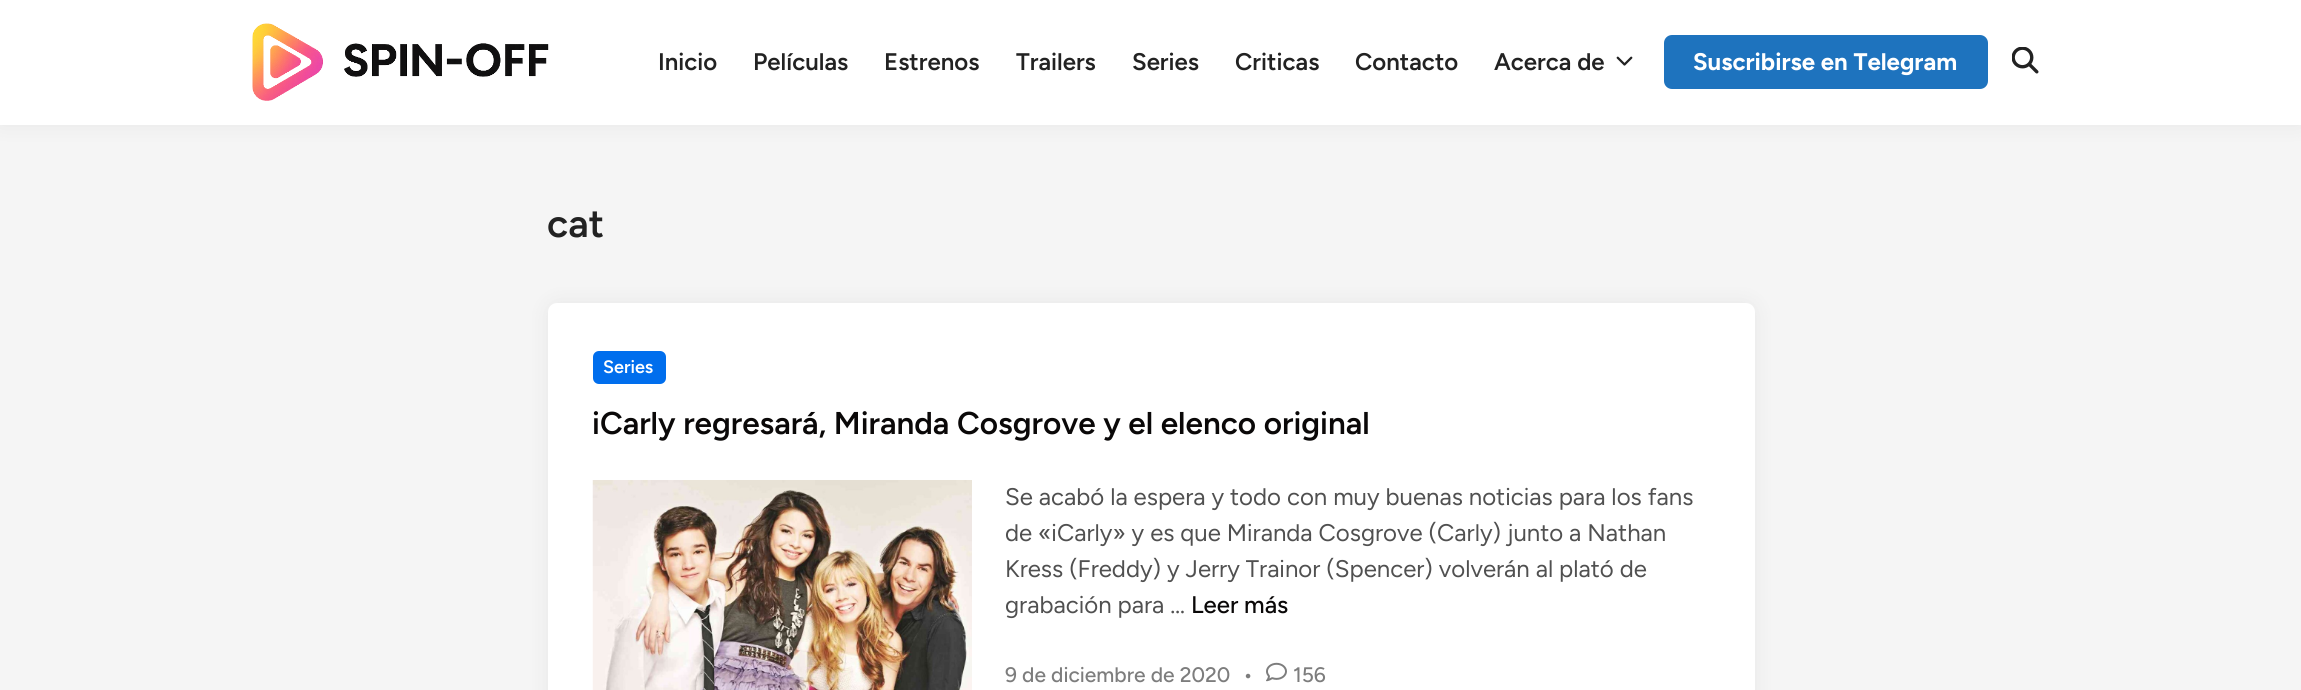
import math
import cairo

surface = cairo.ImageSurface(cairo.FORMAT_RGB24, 2301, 690)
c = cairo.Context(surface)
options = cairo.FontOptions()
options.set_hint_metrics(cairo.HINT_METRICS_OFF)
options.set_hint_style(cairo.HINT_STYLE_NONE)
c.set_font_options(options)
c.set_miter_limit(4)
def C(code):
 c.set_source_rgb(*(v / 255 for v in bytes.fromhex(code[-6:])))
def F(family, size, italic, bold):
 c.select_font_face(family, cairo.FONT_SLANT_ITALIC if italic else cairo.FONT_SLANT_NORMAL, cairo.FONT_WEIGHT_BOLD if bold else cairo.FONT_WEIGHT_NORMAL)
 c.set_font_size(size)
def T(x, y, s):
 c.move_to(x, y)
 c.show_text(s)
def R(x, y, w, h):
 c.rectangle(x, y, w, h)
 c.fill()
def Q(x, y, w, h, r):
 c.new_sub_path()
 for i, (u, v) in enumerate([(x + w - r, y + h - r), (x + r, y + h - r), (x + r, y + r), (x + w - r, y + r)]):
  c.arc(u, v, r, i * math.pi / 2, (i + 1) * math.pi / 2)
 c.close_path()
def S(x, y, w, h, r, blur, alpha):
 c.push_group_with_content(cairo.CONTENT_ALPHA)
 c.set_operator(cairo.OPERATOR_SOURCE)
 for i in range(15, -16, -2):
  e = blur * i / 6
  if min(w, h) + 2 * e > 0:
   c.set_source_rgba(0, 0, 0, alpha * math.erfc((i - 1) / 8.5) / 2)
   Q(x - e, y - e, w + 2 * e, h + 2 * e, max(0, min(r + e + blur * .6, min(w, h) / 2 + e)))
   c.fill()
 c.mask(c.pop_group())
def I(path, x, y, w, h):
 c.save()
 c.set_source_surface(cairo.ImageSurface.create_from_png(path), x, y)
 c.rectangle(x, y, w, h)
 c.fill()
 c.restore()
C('f5f5f5')
c.paint()
C('000000')
S(0,0,2301,125,0,11,.06)
C('ffffff')
R(0,0,2301,125)
I('1.png',252,23,297,78)
F('Figtree SemiBold',24,0,0)
C('222222')
T(658,70,'Inicio')
T(753,70,'Películas')
T(884,70,'Estrenos')
T(1016,70,'Trailers')
T(1132,70,'Series')
T(1235,70,'Criticas')
T(1355,70,'Contacto')
T(1494,70,'Acerca de')
I('2.png',1616,56,17,10)
C('1e73be')
Q(1664,35,324,54,8)
c.fill()
F('Figtree',24,0,1)
C('ffffff')
T(1693,70,'Suscribirse en Telegram')
I('3.png',2012,47,27,27)
F('Figtree SemiBold',39,0,0)
C('222222')
T(547,237,'cat')
C('000000')
S(548,303,1207,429,9,11,.06)
C('ffffff')
Q(548,303,1207,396,9)
c.fill()
C('006eed')
Q(593,351,73,33,6)
c.fill()
F('Figtree SemiBold',18,0,0)
C('ffffff')
T(603,373,'Series')
F('Figtree SemiBold',31.5,0,0)
C('0a0808')
T(592,434,'iCarly regresará, Miranda Cosgrove y el elenco original')
I('4.png',592,480,380,210)
F('Figtree',24,0,0)
C('505050')
T(1005,505,'Se acabó la espera y todo con muy buenas noticias para los fans')
T(1005,541,'de «iCarly» y es que Miranda Cosgrove (Carly) junto a Nathan')
T(1005,577,'Kress (Freddy) y Jerry Trainor (Spencer) volverán al plató de')
T(1005,613,'grabación para …')
F('Figtree Medium',24,0,0)
C('0a0808')
T(1191,613,'Leer más')
F('Figtree Medium',21,0,0)
C('7d7d7d')
T(1005,682,'9 de diciembre de 2020')
T(1243,682,'•')
I('5.png',1266,662,21,20)
T(1293,682,'156')
surface.write_to_png('o.png')
